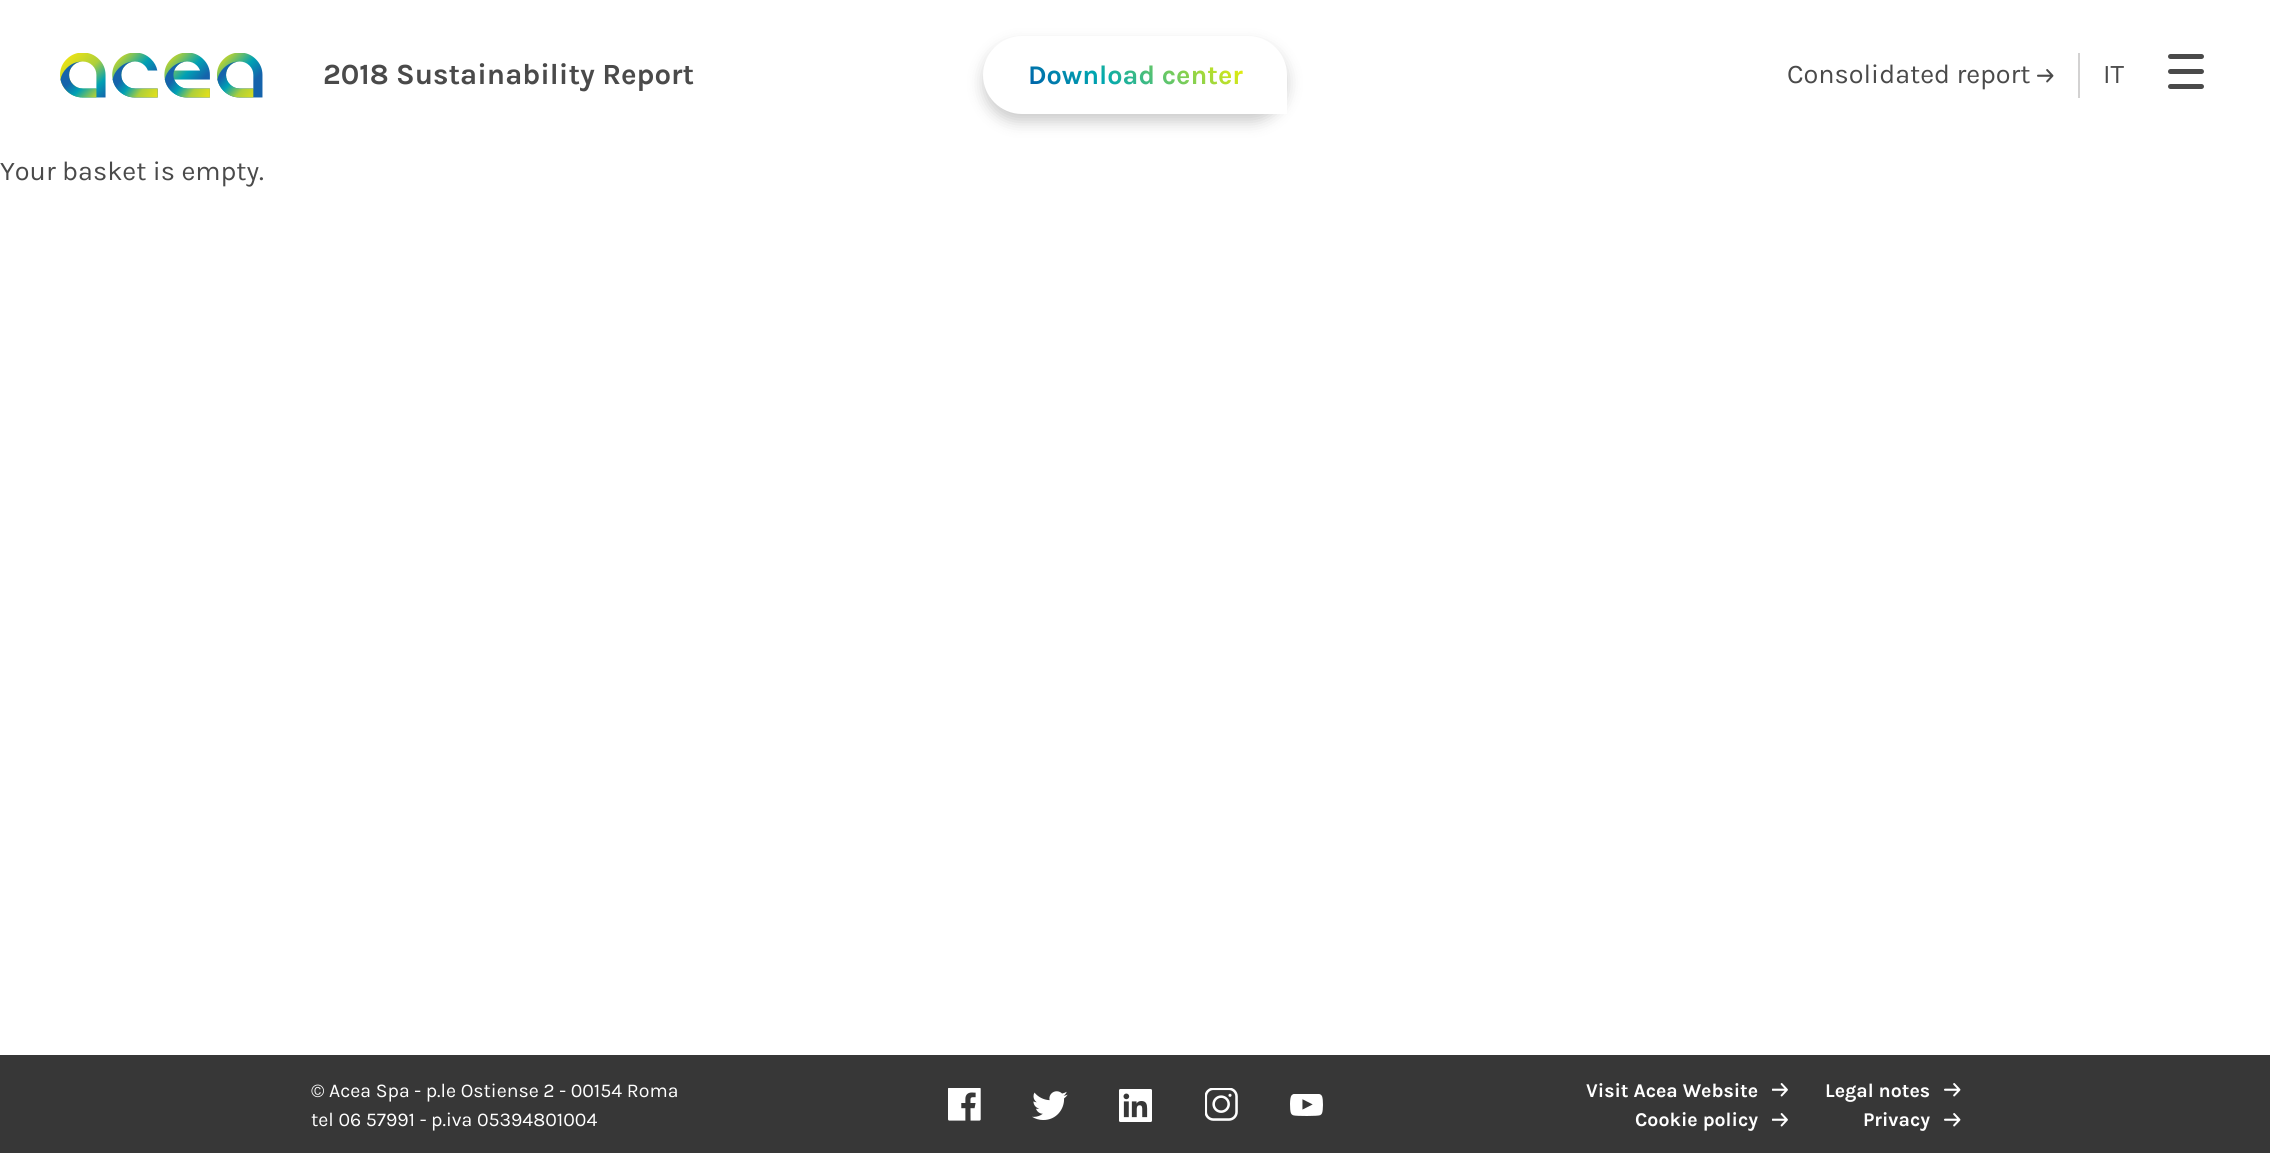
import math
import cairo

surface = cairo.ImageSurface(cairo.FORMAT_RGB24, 2270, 1153)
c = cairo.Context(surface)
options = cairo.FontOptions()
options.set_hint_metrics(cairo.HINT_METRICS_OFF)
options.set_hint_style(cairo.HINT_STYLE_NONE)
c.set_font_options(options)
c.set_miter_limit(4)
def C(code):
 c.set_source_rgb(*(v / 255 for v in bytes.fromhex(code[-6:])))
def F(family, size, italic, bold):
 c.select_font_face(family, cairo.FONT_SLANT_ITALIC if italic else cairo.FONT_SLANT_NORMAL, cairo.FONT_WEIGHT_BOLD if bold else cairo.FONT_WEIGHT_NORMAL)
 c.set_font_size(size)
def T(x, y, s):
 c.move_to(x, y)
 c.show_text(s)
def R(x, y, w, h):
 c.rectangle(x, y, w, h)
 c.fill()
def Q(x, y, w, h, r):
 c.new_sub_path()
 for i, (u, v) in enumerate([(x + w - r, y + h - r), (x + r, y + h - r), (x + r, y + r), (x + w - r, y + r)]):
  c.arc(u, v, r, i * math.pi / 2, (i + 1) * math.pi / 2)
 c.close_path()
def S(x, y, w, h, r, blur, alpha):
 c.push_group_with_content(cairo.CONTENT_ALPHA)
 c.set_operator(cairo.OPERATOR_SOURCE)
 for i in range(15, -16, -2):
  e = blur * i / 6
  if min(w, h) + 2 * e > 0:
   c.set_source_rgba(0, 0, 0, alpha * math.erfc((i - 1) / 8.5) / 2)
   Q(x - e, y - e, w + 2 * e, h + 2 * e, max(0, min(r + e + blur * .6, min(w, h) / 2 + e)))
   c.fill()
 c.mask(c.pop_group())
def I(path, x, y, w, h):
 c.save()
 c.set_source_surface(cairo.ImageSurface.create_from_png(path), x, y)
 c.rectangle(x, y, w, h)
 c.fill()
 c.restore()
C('ffffff')
c.paint()
I('1.png',60,53,203,45)
F('Karla',29.3,0,1)
C('4a4a4a')
T(323,84,'2018 Sustainability Report')
C('000000')
S(983,44,304,78,39,7.5,.2)
C('ffffff')
c.new_path()
c.move_to(1022,36)
c.line_to(1248,36)
c.curve_to(1269.5,36,1287,53.5,1287,75)
c.line_to(1287,114)
c.line_to(1022,114)
c.curve_to(1000.5,114,983,96.5,983,75)
c.curve_to(983,53.5,1000.5,36,1022,36)
c.close_path()
c.fill()
F('Karla',27,0,1)
gradient = cairo.LinearGradient(1197,13,1074,137)
gradient.add_color_stop_rgba(0,0.961,0.949,0,1)
gradient.add_color_stop_rgba(.65,0,0.659,0.69,1)
gradient.add_color_stop_rgba(1,0,0.361,0.663,1)
c.set_source(gradient)
T(1028,84,'Download center')
F('Karla',27,0,0)
C('4a4a4a')
T(1787,83,'Consolidated report')
I('2.png',2037,69,17,14)
C('d3d2d2')
R(2078,53,2,45)
C('4a4a4a')
T(2103,83,'IT')
Q(2168,54,36,5,2.5)
c.fill()
Q(2168,69,36,5,2.5)
c.fill()
Q(2168,84,36,5,2.5)
c.fill()
T(0,180,'Your basket is empty.')
C('373737')
R(0,1055,2270,98)
F('Karla',19.5,0,0)
C('ffffff')
T(311,1097,'© Acea Spa - p.le Ostiense 2 - 00154 Roma')
T(311,1126,'tel 06 57991 - p.iva 05394801004')
I('3.png',948,1088,33,33)
I('4.png',1032,1091,36,29)
I('5.png',1119,1089,33,33)
I('6.png',1205,1088,33,33)
I('7.png',1290,1094,33,22)
F('Karla',19.5,0,1)
T(1586,1097,'Visit Acea Website')
I('8.png',1772,1083,16,14)
I('9.png',1944,1083,17,14)
T(1825,1097,'Legal notes')
T(1635,1126,'Cookie policy')
I('8.png',1772,1113,16,14)
I('9.png',1944,1113,17,14)
T(1863,1126,'Privacy')
surface.write_to_png('o.png')
